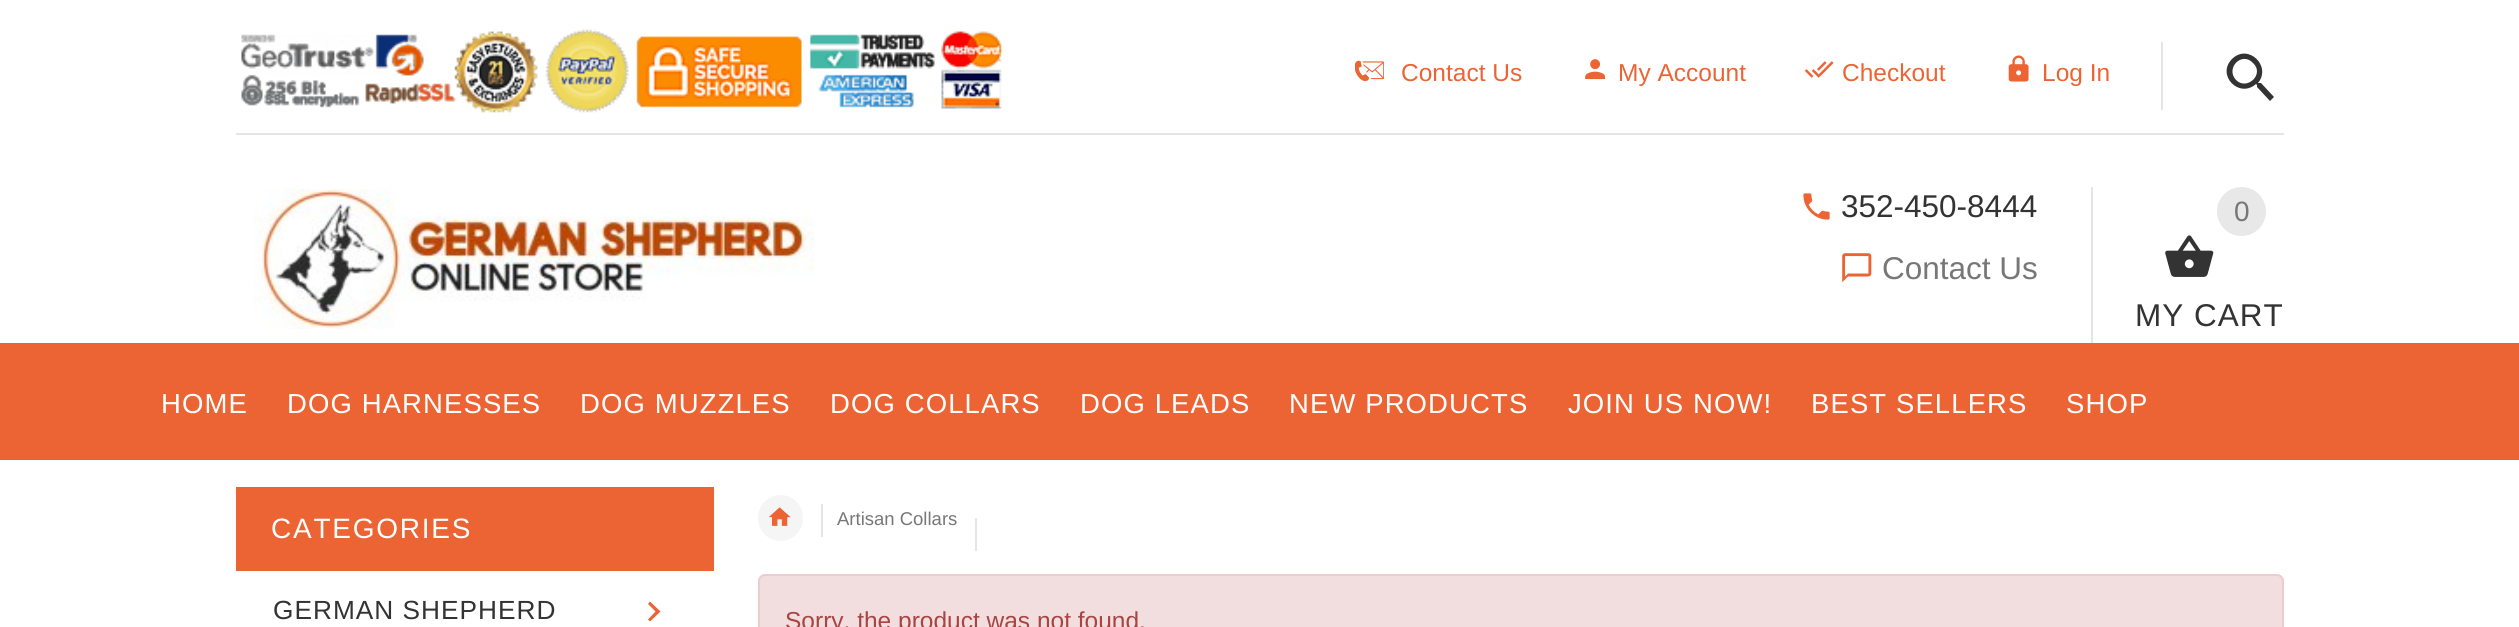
import math
import cairo

surface = cairo.ImageSurface(cairo.FORMAT_RGB24, 2519, 627)
c = cairo.Context(surface)
options = cairo.FontOptions()
options.set_hint_metrics(cairo.HINT_METRICS_OFF)
options.set_hint_style(cairo.HINT_STYLE_NONE)
c.set_font_options(options)
c.set_miter_limit(4)
def C(code):
 c.set_source_rgb(*(v / 255 for v in bytes.fromhex(code[-6:])))
def F(family, size, italic, bold):
 c.select_font_face(family, cairo.FONT_SLANT_ITALIC if italic else cairo.FONT_SLANT_NORMAL, cairo.FONT_WEIGHT_BOLD if bold else cairo.FONT_WEIGHT_NORMAL)
 c.set_font_size(size)
def T(x, y, s):
 c.move_to(x, y)
 c.show_text(s)
def L(x, y, s, letter, word):
 c.move_to(x, y)
 for ch in s:
  c.show_text(ch)
  c.rel_move_to(letter + word * (ch == ' '), 0)
def R(x, y, w, h):
 c.rectangle(x, y, w, h)
 c.fill()
def Q(x, y, w, h, r):
 c.new_sub_path()
 for i, (u, v) in enumerate([(x + w - r, y + h - r), (x + r, y + h - r), (x + r, y + r), (x + w - r, y + r)]):
  c.arc(u, v, r, i * math.pi / 2, (i + 1) * math.pi / 2)
 c.close_path()
def I(path, x, y, w, h):
 c.save()
 c.set_source_surface(cairo.ImageSurface.create_from_png(path), x, y)
 c.rectangle(x, y, w, h)
 c.fill()
 c.restore()
C('ffffff')
c.paint()
I('1.png',241,29,761,84)
C('e5e5e5')
R(2161,42,2,68)
I('2.png',1355,60,29,21)
F('Liberation Sans',24.5,0,0)
C('ec6434')
T(1401,81,'Contact Us')
I('3.png',1585,59,21,21)
T(1618,81,'My Account')
I('4.png',1804,61,30,17)
T(1842,81,'Checkout')
I('5.png',2008,55,21,27)
T(2042,81,'Log In')
C('333333')
c.new_path()
c.move_to(2236,80)
c.curve_to(2247,91,2265,74,2253,63)
c.curve_to(2242,51,2225,68,2236,80)
c.close_path()
c.move_to(2261,83)
c.line_to(2274,97)
c.line_to(2270,101)
c.line_to(2257,87)
c.line_to(2257,85)
c.line_to(2256,84)
c.curve_to(2239,99,2216,75,2232,59)
c.curve_to(2248,43,2272,66,2258,83)
c.line_to(2259,83)
c.close_path()
c.fill()
C('e5e5e5')
R(236,133,2048,2)
I('6.png',254,189,560,140)
I('7.png',1803,193,27,27)
F('Liberation Sans',31.5,0,0)
C('333333')
T(1841,217,'352-450-8444')
I('8.png',1842,253,30,30)
C('777777')
T(1882,279,'Contact Us')
C('e5e5e5')
R(2091,187,2,156)
C('e8e8e8')
c.new_path()
c.arc(2241.5,211.5,24.5,0,2 * math.pi)
c.fill()
F('Liberation Sans',28,0,0)
C('777777')
T(2234,221,'0')
I('9.png',2165,235,49,42)
F('Liberation Sans',31.5,0,0)
C('333333')
L(2135,326,'MY CART',1,0)
C('ec6434')
R(0,343,2519,117)
F('Liberation Sans',27.5,0,0)
C('ffffff')
L(161,413,'HOME',1.1,0)
L(287,413,'DOG HARNESSES',1.1,0)
L(580,413,'DOG MUZZLES',1.1,0)
L(830,413,'DOG COLLARS',1.1,0)
L(1080,413,'DOG LEADS',1.1,0)
L(1289,413,'NEW PRODUCTS',1.1,0)
L(1568,413,'JOIN US NOW!',1.1,0)
L(1811,413,'BEST SELLERS',1.1,0)
L(2066,413,'SHOP',1.1,0)
C('ec6434')
R(236,487,478,84)
F('Liberation Sans',28,0,0)
C('ffffff')
L(271,538,'CATEGORIES',1.75,0)
F('Liberation Sans',26.25,0,0)
C('333333')
L(273,619,'GERMAN SHEPHERD',1,0)
C('ec6434')
c.new_path()
c.move_to(650,601.5)
c.line_to(660.5,611.5)
c.line_to(650,621.5)
c.line_to(648,619.5)
c.line_to(655.5,611.5)
c.line_to(648,604)
c.close_path()
c.fill()
C('f5f5f5')
Q(758,495,45,46,22.5)
c.fill()
I('10.png',768,507,23,19)
C('e5e5e5')
R(821,504,2,33)
F('Liberation Sans',18.5,0,0)
C('777777')
T(837,525,'Artisan Collars')
C('e5e5e5')
R(975,518,2,33)
C('f2dede')
Q(759,575,1524,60,6)
c.fill_preserve()
C('ebccd1')
c.stroke()
F('Liberation Sans',24.5,0,0)
C('a94442')
T(785,629,'Sorry, the product was not found.')
surface.write_to_png('o.png')
